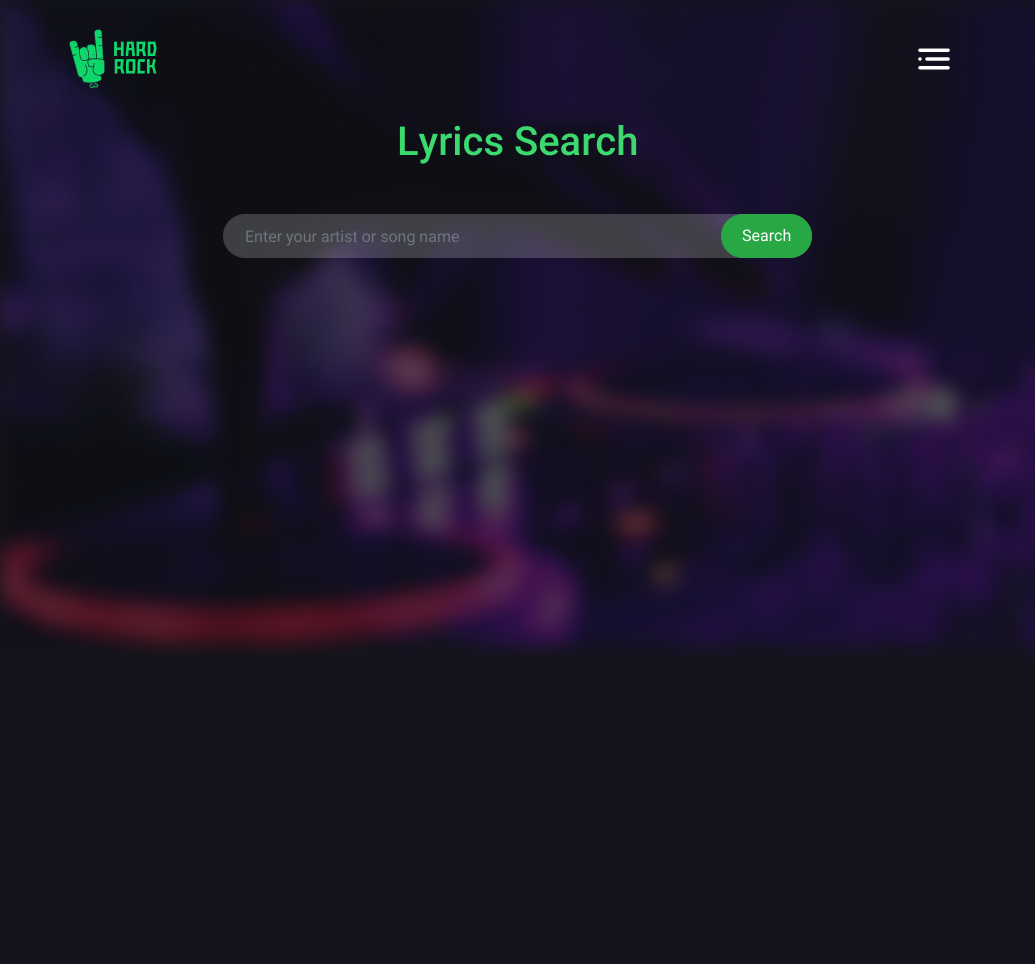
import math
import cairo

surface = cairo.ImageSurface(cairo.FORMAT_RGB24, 1035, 964)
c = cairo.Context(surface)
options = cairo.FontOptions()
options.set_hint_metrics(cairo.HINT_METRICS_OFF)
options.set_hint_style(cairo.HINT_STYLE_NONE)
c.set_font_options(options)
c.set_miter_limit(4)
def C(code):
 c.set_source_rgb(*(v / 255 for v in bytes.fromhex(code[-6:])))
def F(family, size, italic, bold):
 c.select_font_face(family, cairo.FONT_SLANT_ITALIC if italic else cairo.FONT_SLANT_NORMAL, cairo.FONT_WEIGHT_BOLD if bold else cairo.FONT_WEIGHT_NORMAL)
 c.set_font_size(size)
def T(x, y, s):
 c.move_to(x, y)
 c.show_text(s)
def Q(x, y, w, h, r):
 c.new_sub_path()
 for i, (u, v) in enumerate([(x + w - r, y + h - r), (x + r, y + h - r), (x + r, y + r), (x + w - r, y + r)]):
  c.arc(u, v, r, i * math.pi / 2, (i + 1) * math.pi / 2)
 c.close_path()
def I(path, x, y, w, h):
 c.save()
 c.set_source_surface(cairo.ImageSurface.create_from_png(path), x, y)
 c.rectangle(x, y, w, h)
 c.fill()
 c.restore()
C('13141b')
c.paint()
I('1.png',0,0,1035,659)
I('2.png',69,29,88,60)
I('3.png',918,48,32,22)
F('Roboto Medium',40,0,0)
C('3bd96e')
T(397,155,'Lyrics Search')
c.set_source_rgba(1,1,1,0.2)
Q(223,214,589,44,22)
c.fill()
F('Roboto',16,0,0)
C('6c757d')
T(245,242,'Enter your artist or song name')
C('28a745')
Q(721.5,214.5,90,43,21.5)
c.fill_preserve()
c.set_line_width(1)
c.stroke()
C('ffffff')
T(742,241,'Search')
surface.write_to_png('o.png')
